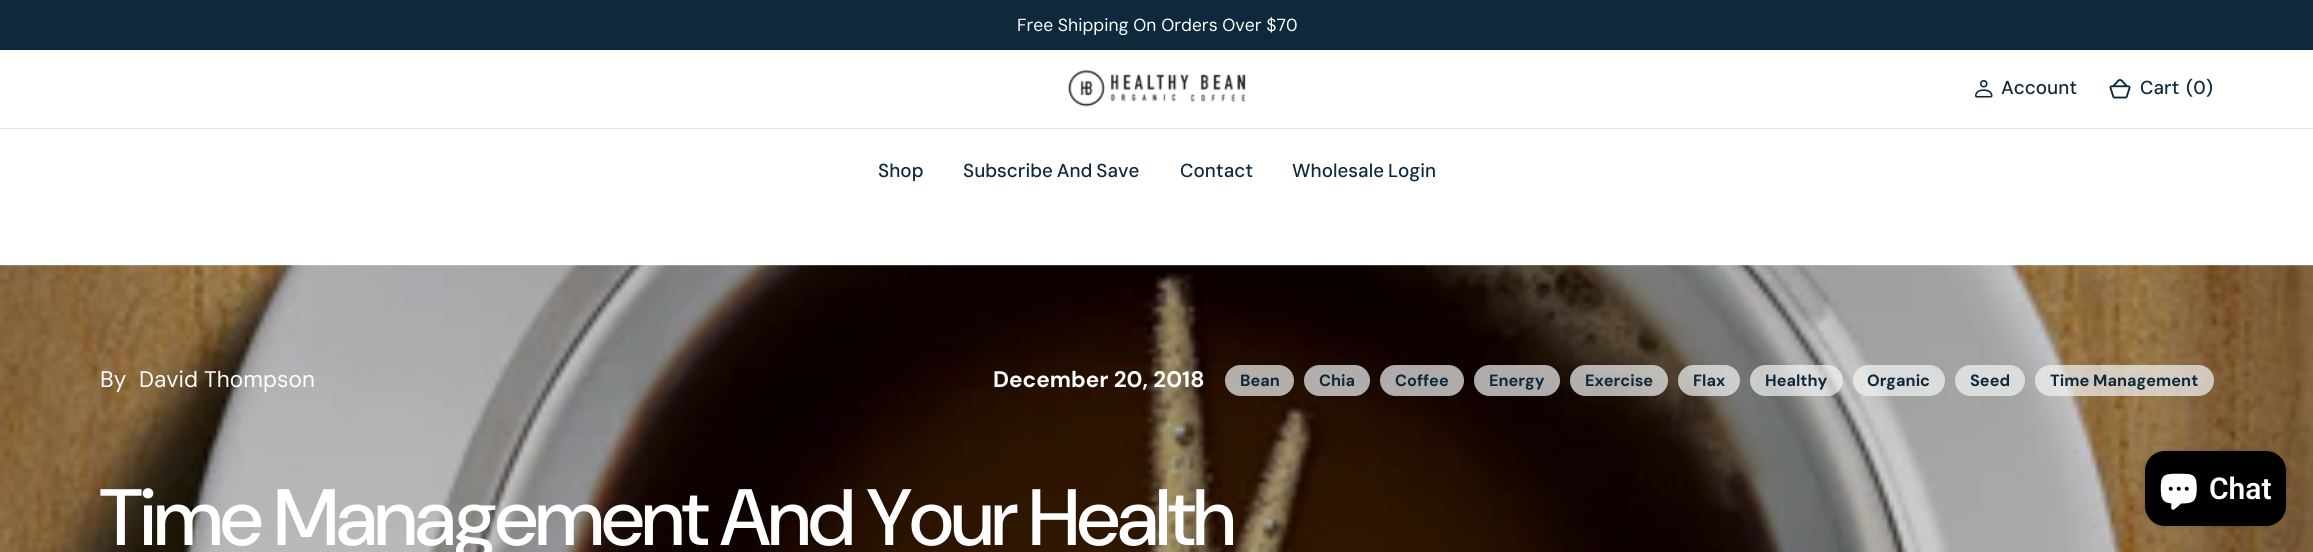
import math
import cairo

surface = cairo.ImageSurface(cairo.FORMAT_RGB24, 2313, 552)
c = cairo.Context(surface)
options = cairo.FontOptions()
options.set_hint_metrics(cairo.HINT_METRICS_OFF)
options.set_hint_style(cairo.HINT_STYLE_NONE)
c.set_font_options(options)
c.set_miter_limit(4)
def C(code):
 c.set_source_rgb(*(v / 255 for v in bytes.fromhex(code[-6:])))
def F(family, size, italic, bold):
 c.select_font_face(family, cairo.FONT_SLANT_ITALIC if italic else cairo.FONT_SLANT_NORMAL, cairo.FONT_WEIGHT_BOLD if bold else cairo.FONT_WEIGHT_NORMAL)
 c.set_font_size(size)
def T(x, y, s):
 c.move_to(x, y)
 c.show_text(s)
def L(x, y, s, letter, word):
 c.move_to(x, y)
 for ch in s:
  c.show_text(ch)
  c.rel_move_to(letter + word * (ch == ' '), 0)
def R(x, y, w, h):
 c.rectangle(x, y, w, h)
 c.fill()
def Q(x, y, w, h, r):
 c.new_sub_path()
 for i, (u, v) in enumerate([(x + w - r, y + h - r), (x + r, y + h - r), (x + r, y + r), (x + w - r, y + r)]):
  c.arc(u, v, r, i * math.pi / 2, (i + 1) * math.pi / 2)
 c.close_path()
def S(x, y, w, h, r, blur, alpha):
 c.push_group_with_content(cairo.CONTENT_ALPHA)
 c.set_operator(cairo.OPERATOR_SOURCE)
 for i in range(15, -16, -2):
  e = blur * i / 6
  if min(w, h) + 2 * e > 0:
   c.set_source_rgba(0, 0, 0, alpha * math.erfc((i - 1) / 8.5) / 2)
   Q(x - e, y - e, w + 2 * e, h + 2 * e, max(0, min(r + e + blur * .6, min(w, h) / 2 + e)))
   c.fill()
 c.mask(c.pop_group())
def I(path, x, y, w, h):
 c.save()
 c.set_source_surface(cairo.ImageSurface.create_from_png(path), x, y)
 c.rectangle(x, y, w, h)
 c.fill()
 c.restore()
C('ffffff')
c.paint()
C('0e283c')
R(0,0,2313,50)
F('DM Sans',17.5,0,0)
C('ffffff')
T(1017,31,'Free Shipping On Orders Over $70')
C('e2e5e8')
R(0,128,2313,1)
I('1.png',1068,69,178,38)
I('2.png',1975,80,18,18)
F('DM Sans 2 Medium',18.75,0,0)
C('0e283c')
T(2001,94,'Account')
I('3.png',2109,79,22,20)
T(2140,94,'Cart')
T(2186,94,'(0)')
T(878,177,'Shop')
L(963,177,'Subscribe And Save',0,-1)
T(1180,177,'Contact')
L(1292,177,'Wholesale Login',0,-1)
I('4.png',0,265,2313,287)
F('DM Sans',22.5,0,0)
C('ffffff')
T(100,387,'By')
T(139,387,'David Thompson')
F('DM Sans',22.5,0,1)
T(993,387,'December 20, 2018')
c.set_source_rgba(0.949,0.957,0.957,0.7)
Q(1225,365,69,31,15.5)
c.fill()
F('DM Sans 2',16.25,0,1)
C('0e283c')
T(1240,386,'Bean')
c.set_source_rgba(0.949,0.957,0.957,0.7)
Q(1304,365,66,31,15.5)
c.fill()
C('0e283c')
T(1319,386,'Chia')
c.set_source_rgba(0.949,0.957,0.957,0.7)
Q(1380,365,84,31,15.5)
c.fill()
C('0e283c')
T(1395,386,'Coffee')
c.set_source_rgba(0.949,0.957,0.957,0.7)
Q(1474,365,86,31,15.5)
c.fill()
C('0e283c')
T(1489,386,'Energy')
c.set_source_rgba(0.949,0.957,0.957,0.7)
Q(1570,365,98,31,15.5)
c.fill()
C('0e283c')
T(1585,386,'Exercise')
c.set_source_rgba(0.949,0.957,0.957,0.7)
Q(1678,365,62,31,15.5)
c.fill()
C('0e283c')
T(1693,386,'Flax')
c.set_source_rgba(0.949,0.957,0.957,0.7)
Q(1750,365,93,31,15.5)
c.fill()
C('0e283c')
T(1765,386,'Healthy')
c.set_source_rgba(0.949,0.957,0.957,0.7)
Q(1853,365,92,31,15.5)
c.fill()
C('0e283c')
T(1867,386,'Organic')
c.set_source_rgba(0.949,0.957,0.957,0.7)
Q(1955,365,70,31,15.5)
c.fill()
C('0e283c')
T(1970,386,'Seed')
c.set_source_rgba(0.949,0.957,0.957,0.7)
Q(2035,365,179,31,15.5)
c.fill()
C('0e283c')
T(2050,386,'Time Management')
F('DM Sans Medium',79.75,0,0)
C('ffffff')
L(100,545,'Time Management And Your Health',-2.4,0)
C('000000')
S(2145,451,141,75,20,3,.15)
C('000000')
Q(2145,451,141,75,20)
c.fill()
I('5.png',2160,473,37,37)
F('Roboto SemiBold',30,0,0)
C('ffffff')
T(2209,499,'Chat')
surface.write_to_png('o.png')
